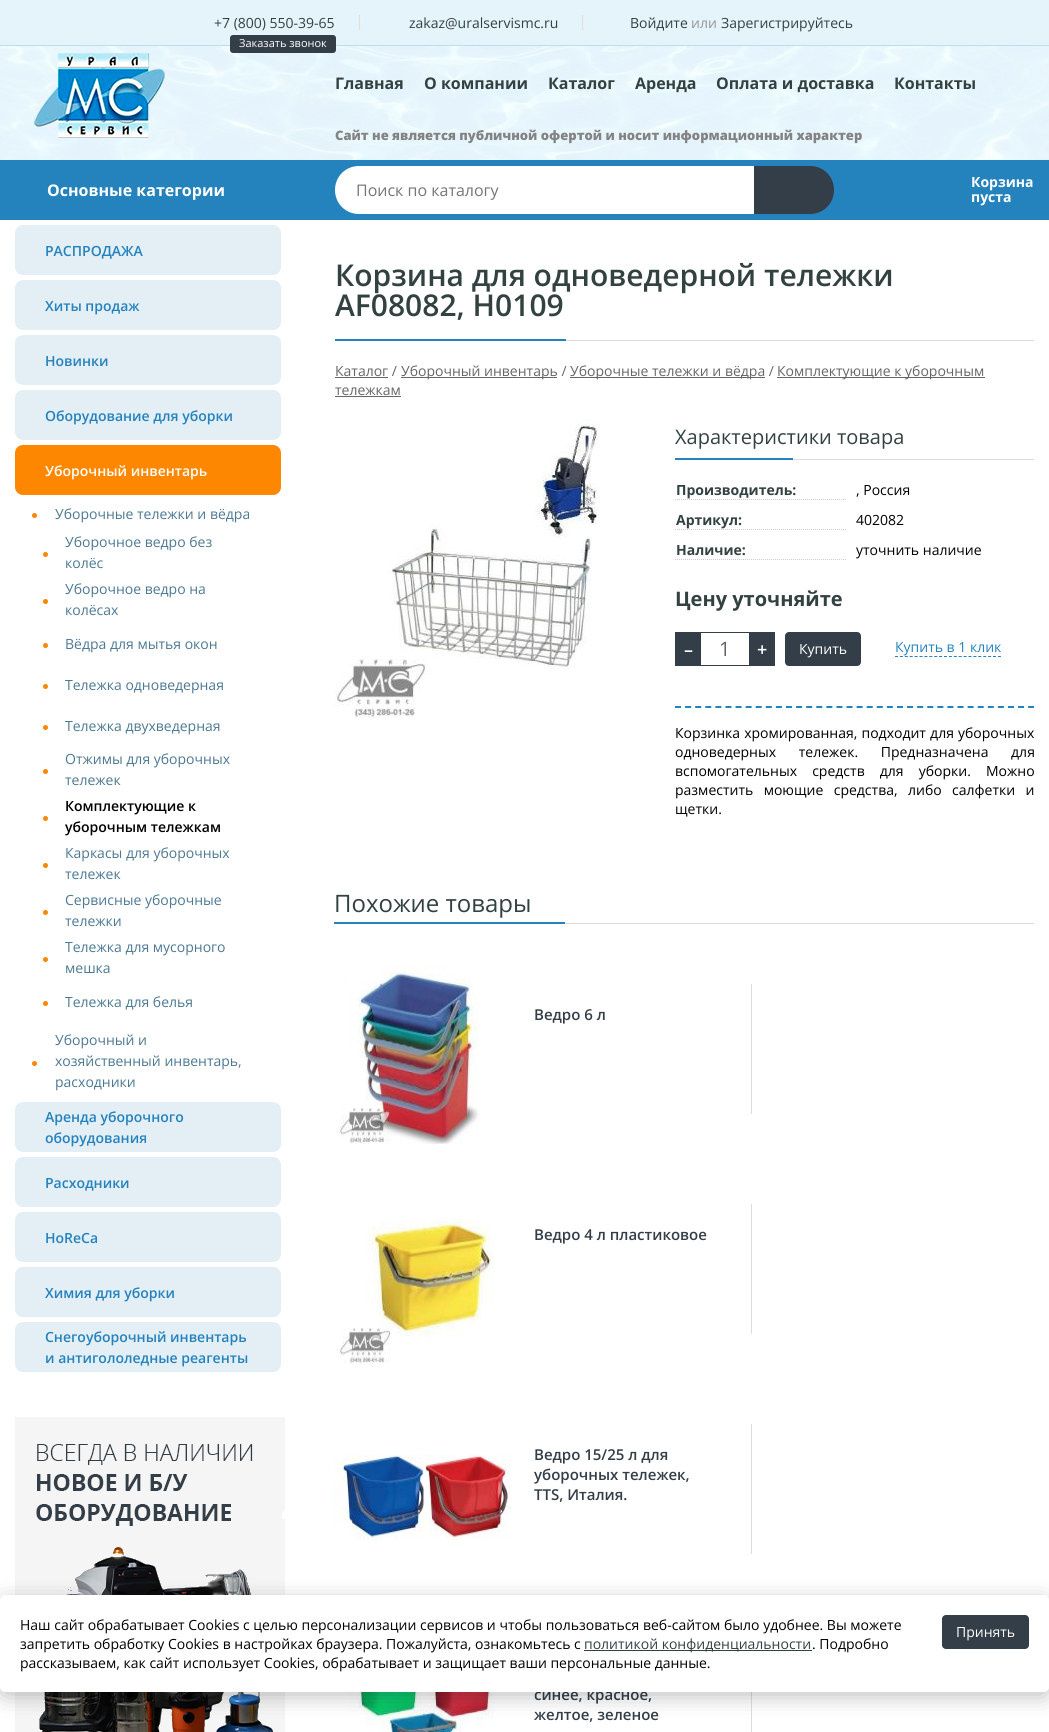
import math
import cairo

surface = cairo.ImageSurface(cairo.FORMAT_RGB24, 1049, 1732)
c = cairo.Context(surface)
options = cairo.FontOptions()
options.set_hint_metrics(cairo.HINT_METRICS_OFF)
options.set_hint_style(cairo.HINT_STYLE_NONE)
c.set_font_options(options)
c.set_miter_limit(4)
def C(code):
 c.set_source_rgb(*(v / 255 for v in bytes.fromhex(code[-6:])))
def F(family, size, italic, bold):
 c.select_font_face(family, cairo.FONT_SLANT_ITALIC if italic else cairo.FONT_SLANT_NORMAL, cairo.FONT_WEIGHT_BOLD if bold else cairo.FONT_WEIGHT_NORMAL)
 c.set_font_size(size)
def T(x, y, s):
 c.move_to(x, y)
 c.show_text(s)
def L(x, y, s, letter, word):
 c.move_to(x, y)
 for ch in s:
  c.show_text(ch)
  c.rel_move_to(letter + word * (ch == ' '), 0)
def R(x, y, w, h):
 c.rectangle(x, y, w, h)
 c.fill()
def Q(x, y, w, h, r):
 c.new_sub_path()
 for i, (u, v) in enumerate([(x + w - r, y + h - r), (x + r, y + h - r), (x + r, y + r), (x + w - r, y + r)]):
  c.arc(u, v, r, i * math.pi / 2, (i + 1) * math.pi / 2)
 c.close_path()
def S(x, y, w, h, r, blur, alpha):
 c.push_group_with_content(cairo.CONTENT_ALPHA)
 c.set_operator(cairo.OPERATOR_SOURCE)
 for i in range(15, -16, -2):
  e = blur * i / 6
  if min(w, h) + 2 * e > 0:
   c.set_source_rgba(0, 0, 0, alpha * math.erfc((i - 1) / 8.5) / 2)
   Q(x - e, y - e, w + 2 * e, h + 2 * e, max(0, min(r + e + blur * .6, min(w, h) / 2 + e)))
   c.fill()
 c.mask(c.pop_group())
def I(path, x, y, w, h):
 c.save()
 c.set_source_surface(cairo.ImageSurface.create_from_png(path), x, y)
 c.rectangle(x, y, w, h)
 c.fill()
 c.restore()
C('ffffff')
c.paint()
I('1.png',0,46,1049,114)
C('e5f4fb')
R(0,0,1049,45)
C('bddcee')
R(0,45,1049,1)
F('Open Sans',14,0,0)
C('334141')
T(214,28,'+7 (800) 550-39-65')
C('d9e1e1')
R(359,15,1,15)
C('ebefef')
R(360,15,1,15)
C('333e48')
Q(230,35,106,18,3)
c.fill()
F('Open Sans',11,0,0)
C('ffffff')
T(239,47,'Заказать звонок')
F('Open Sans',14,0,0)
C('334141')
T(409,28,'zakaz@uralservismc.ru')
C('d9e1e1')
R(582,15,1,15)
C('ebefef')
R(583,15,1,15)
C('334141')
T(630,28,'Войдите')
C('959595')
T(691,28,'или')
C('334141')
T(721,28,'Зарегистрируйтесь')
I('2.png',34,53,131,85)
F('Open Sans',16,0,1)
T(335,89,'Главная')
T(424,89,'О компании')
T(548,89,'Каталог')
T(635,89,'Аренда')
T(716,89,'Оплата и доставка')
T(894,89,'Контакты')
F('Open Sans ExtraBold',13,0,0)
C('838383')
T(335,140,'Сайт не является публичной офертой и носит информационный характер')
C('2482bd')
R(0,160,1049,60)
F('Open Sans',16,0,1)
C('ffffff')
T(47,196,'Основные категории')
c.new_path()
c.move_to(359,166)
c.line_to(754,166)
c.line_to(754,214)
c.line_to(359,214)
c.curve_to(345.5,214,335,203.5,335,190)
c.curve_to(335,176.5,345.5,166,359,166)
c.close_path()
c.fill()
F('Open Sans',16,0,0)
C('757575')
T(356,196,'Поиск по каталогу')
C('333e48')
c.new_path()
c.move_to(754,166)
c.line_to(810,166)
c.curve_to(823.5,166,834,176.5,834,190)
c.curve_to(834,203.5,823.5,214,810,214)
c.line_to(754,214)
c.close_path()
c.fill()
F('Open Sans',14,0,1)
C('ffffff')
T(971,187,'Корзина')
T(971,202,'пуста')
C('e3eff5')
Q(15,225,266,50,8)
c.fill()
F('Open Sans SemiBold',14,0,0)
C('2482bd')
T(45,256,'РАСПРОДАЖА')
C('e3eff5')
Q(15,280,266,50,8)
c.fill()
C('2482bd')
T(45,311,'Хиты продаж')
C('e3eff5')
Q(15,335,266,50,8)
c.fill()
C('2482bd')
T(45,366,'Новинки')
C('e3eff5')
Q(15,390,266,50,8)
c.fill()
C('2482bd')
T(45,421,'Оборудование для уборки')
C('fe8700')
Q(15,445,266,50,8)
c.fill()
C('ffffff')
T(45,476,'Уборочный инвентарь')
C('fe8700')
c.new_path()
c.arc(34.5,515.5,2.5,0,2 * math.pi)
c.fill()
F('Open Sans',14,0,0)
C('4c7893')
T(55,519,'Уборочные тележки и вёдра')
T(65,547,'Уборочное ведро без')
C('fe8700')
c.new_path()
c.arc(45.5,554.5,2.5,0,2 * math.pi)
c.fill()
C('4c7893')
T(65,568,'колёс')
T(65,594,'Уборочное ведро на')
C('fe8700')
c.new_path()
c.arc(45.5,601.5,2.5,0,2 * math.pi)
c.fill()
C('4c7893')
T(65,615,'колёсах')
C('fe8700')
c.new_path()
c.arc(45.5,645.5,2.5,0,2 * math.pi)
c.fill()
C('4c7893')
T(65,649,'Вёдра для мытья окон')
C('fe8700')
c.new_path()
c.arc(45.5,686.5,2.5,0,2 * math.pi)
c.fill()
C('4c7893')
T(65,690,'Тележка одноведерная')
C('fe8700')
c.new_path()
c.arc(45.5,727.5,2.5,0,2 * math.pi)
c.fill()
C('4c7893')
T(65,731,'Тележка двухведерная')
T(65,764,'Отжимы для уборочных')
C('fe8700')
c.new_path()
c.arc(45.5,771.5,2.5,0,2 * math.pi)
c.fill()
C('4c7893')
T(65,785,'тележек')
F('Open Sans SemiBold',14,0,0)
C('000000')
T(65,811,'Комплектующие к')
C('fe8700')
c.new_path()
c.arc(45.5,818.5,2.5,0,2 * math.pi)
c.fill()
C('000000')
T(65,832,'уборочным тележкам')
F('Open Sans',14,0,0)
C('4c7893')
T(65,858,'Каркасы для уборочных')
C('fe8700')
c.new_path()
c.arc(45.5,865.5,2.5,0,2 * math.pi)
c.fill()
C('4c7893')
T(65,879,'тележек')
T(65,905,'Сервисные уборочные')
C('fe8700')
c.new_path()
c.arc(45.5,912.5,2.5,0,2 * math.pi)
c.fill()
C('4c7893')
T(65,926,'тележки')
T(65,952,'Тележка для мусорного')
C('fe8700')
c.new_path()
c.arc(45.5,959.5,2.5,0,2 * math.pi)
c.fill()
C('4c7893')
T(65,973,'мешка')
C('fe8700')
c.new_path()
c.arc(45.5,1003.5,2.5,0,2 * math.pi)
c.fill()
C('4c7893')
T(65,1007,'Тележка для белья')
T(55,1045,'Уборочный и')
C('fe8700')
c.new_path()
c.arc(34.5,1063.5,2.5,0,2 * math.pi)
c.fill()
C('4c7893')
T(55,1066,'хозяйственный инвентарь,')
T(55,1087,'расходники')
C('e3eff5')
Q(15,1102,266,50,8)
c.fill()
F('Open Sans SemiBold',14,0,0)
C('2482bd')
T(45,1122,'Аренда уборочного')
T(45,1143,'оборудования')
C('e3eff5')
Q(15,1157,266,50,8)
c.fill()
C('2482bd')
T(45,1188,'Расходники')
C('e3eff5')
Q(15,1212,266,50,8)
c.fill()
C('2482bd')
T(45,1243,'HoReCa')
C('e3eff5')
Q(15,1267,266,50,8)
c.fill()
C('2482bd')
T(45,1298,'Химия для уборки')
C('e3eff5')
Q(15,1322,266,50,8)
c.fill()
C('2482bd')
T(45,1342,'Снегоуборочный инвентарь')
T(45,1363,'и антигололедные реагенты')
I('3.png',15,1417,270,315)
C('dddddd')
R(566,340,468,1)
F('Open Sans SemiBold',30,0,0)
C('334141')
T(335,286,'Корзина для одноведерной тележки')
T(335,316,'AF08082, H0109')
C('2482bd')
R(335,339,231,2)
F('Open Sans',14,0,0)
C('666666')
T(335,376,'Каталог /')
R(335,377,53,1)
R(401,377,156,1)
T(401,376,'Уборочный инвентарь /')
R(570,377,195,1)
T(570,376,'Уборочные тележки и вёдра /')
R(777,377,208,1)
T(777,376,'Комплектующие к уборочным')
T(335,395,'тележкам')
R(335,396,66,1)
I('4.png',335,419,264,300)
C('dddddd')
R(793,459,241,1)
F('Open Sans',20,0,0)
C('334141')
T(675,444,'Характеристики товара')
C('2482bd')
R(675,458,118,2)
c.new_path()
c.move_to(675,499.5)
c.line_to(847,499.5)
C('cccccc')
c.set_line_width(1)
c.set_dash([1,1])
c.stroke()
F('Open Sans',14,0,1)
C('334141')
T(676,495,'Производитель:')
F('Open Sans',14,0,0)
C('000000')
T(856,495,', Россия')
c.new_path()
c.move_to(675,529.5)
c.line_to(847,529.5)
C('cccccc')
c.stroke()
F('Open Sans',14,0,1)
C('334141')
T(676,525,'Артикул:')
F('Open Sans',14,0,0)
C('000000')
T(856,525,'402082')
c.new_path()
c.move_to(675,559.5)
c.line_to(847,559.5)
C('cccccc')
c.stroke()
F('Open Sans',14,0,1)
C('334141')
T(676,555,'Наличие:')
F('Open Sans',14,0,0)
C('000000')
T(856,555,'уточнить наличие')
F('Open Sans',20,0,1)
C('334141')
T(675,606,'Цену уточняйте')
C('333e48')
R(675,632,26,34)
F('Open Sans SemiBold',18,0,0)
C('ffffff')
T(684,656,'–')
C('333e48')
R(701,632,48,1)
R(701,665,48,1)
F('Open Sans',20,0,0)
C('666666')
T(719,656,'1')
C('333e48')
R(749,632,26,34)
F('Open Sans SemiBold',18,0,0)
C('ffffff')
T(757,656,'+')
C('333e48')
Q(785,632,76,34,4)
c.fill()
F('Open Sans',14,0,0)
C('ffffff')
T(799,654,'Купить')
c.new_path()
c.move_to(895,656.5)
c.line_to(1001,656.5)
C('2482bd')
c.set_dash([3,1.9])
c.stroke()
T(895,652,'Купить в 1 клик')
c.new_path()
c.move_to(675,707)
c.line_to(1034,707)
c.set_line_width(2)
c.set_dash([6,4.09])
c.stroke()
C('000000')
L(675,738,'Корзинка хромированная, подходит для уборочных',0,.5)
L(675,757,'одноведерных тележек. Предназначена для',0,19)
L(675,776,'вспомогательных средств для уборки. Можно',0,11.5)
L(675,795,'разместить моющие средства, либо салфетки и',0,6.75)
T(675,814,'щетки.')
C('ffffff')
S(586,443,22,22,11,4,1)
C('dddddd')
R(565,923,469,1)
F('Open Sans',24,0,0)
C('334141')
T(334,912,'Похожие товары')
C('2482bd')
R(334,922,231,2)
I('5.png',336,964,144,180)
F('Open Sans SemiBold',15,0,0)
C('333e48')
T(534,1020,'Ведро 6 л')
C('dddddd')
R(751,984,1,130)
I('6.png',336,1218,158,146)
C('333e48')
T(534,1240,'Ведро 4 л пластиковое')
C('dddddd')
R(751,1204,1,130)
I('7.png',334,1454,176,86)
C('333e48')
T(534,1460,'Ведро 15/25 л для')
T(534,1480,'уборочных тележек,')
T(534,1500,'TTS, Италия.')
C('dddddd')
R(751,1424,1,130)
I('8.png',350,1692,153,40)
C('333e48')
T(534,1700,'синее, красное,')
T(534,1720,'желтое, зеленое')
C('dddddd')
R(751,1692,1,40)
C('000000')
S(3,1603,1043,91,2,11.5,.3)
C('ffffff')
Q(0,1595,1049,97,5)
c.fill()
F('Open Sans',14,0,0)
C('000000')
T(20,1630,'Наш сайт обрабатывает Cookies с целью персонализации сервисов и чтобы пользоваться веб-сайтом было удобнее. Вы можете')
C('333e48')
Q(942,1615,87,34,4)
c.fill()
C('ffffff')
T(956,1637,'Принять')
C('000000')
T(20,1649,'запретить обработку Cookies в настройках браузера. Пожалуйста, ознакомьтесь с')
C('334141')
R(584,1650,228,1)
T(584,1649,'политикой конфиденциальности')
C('000000')
T(812,1649,'. Подробно')
T(20,1668,'рассказываем, как сайт использует Cookies, обрабатывает и защищает ваши персональные данные.')
surface.write_to_png('o.png')
